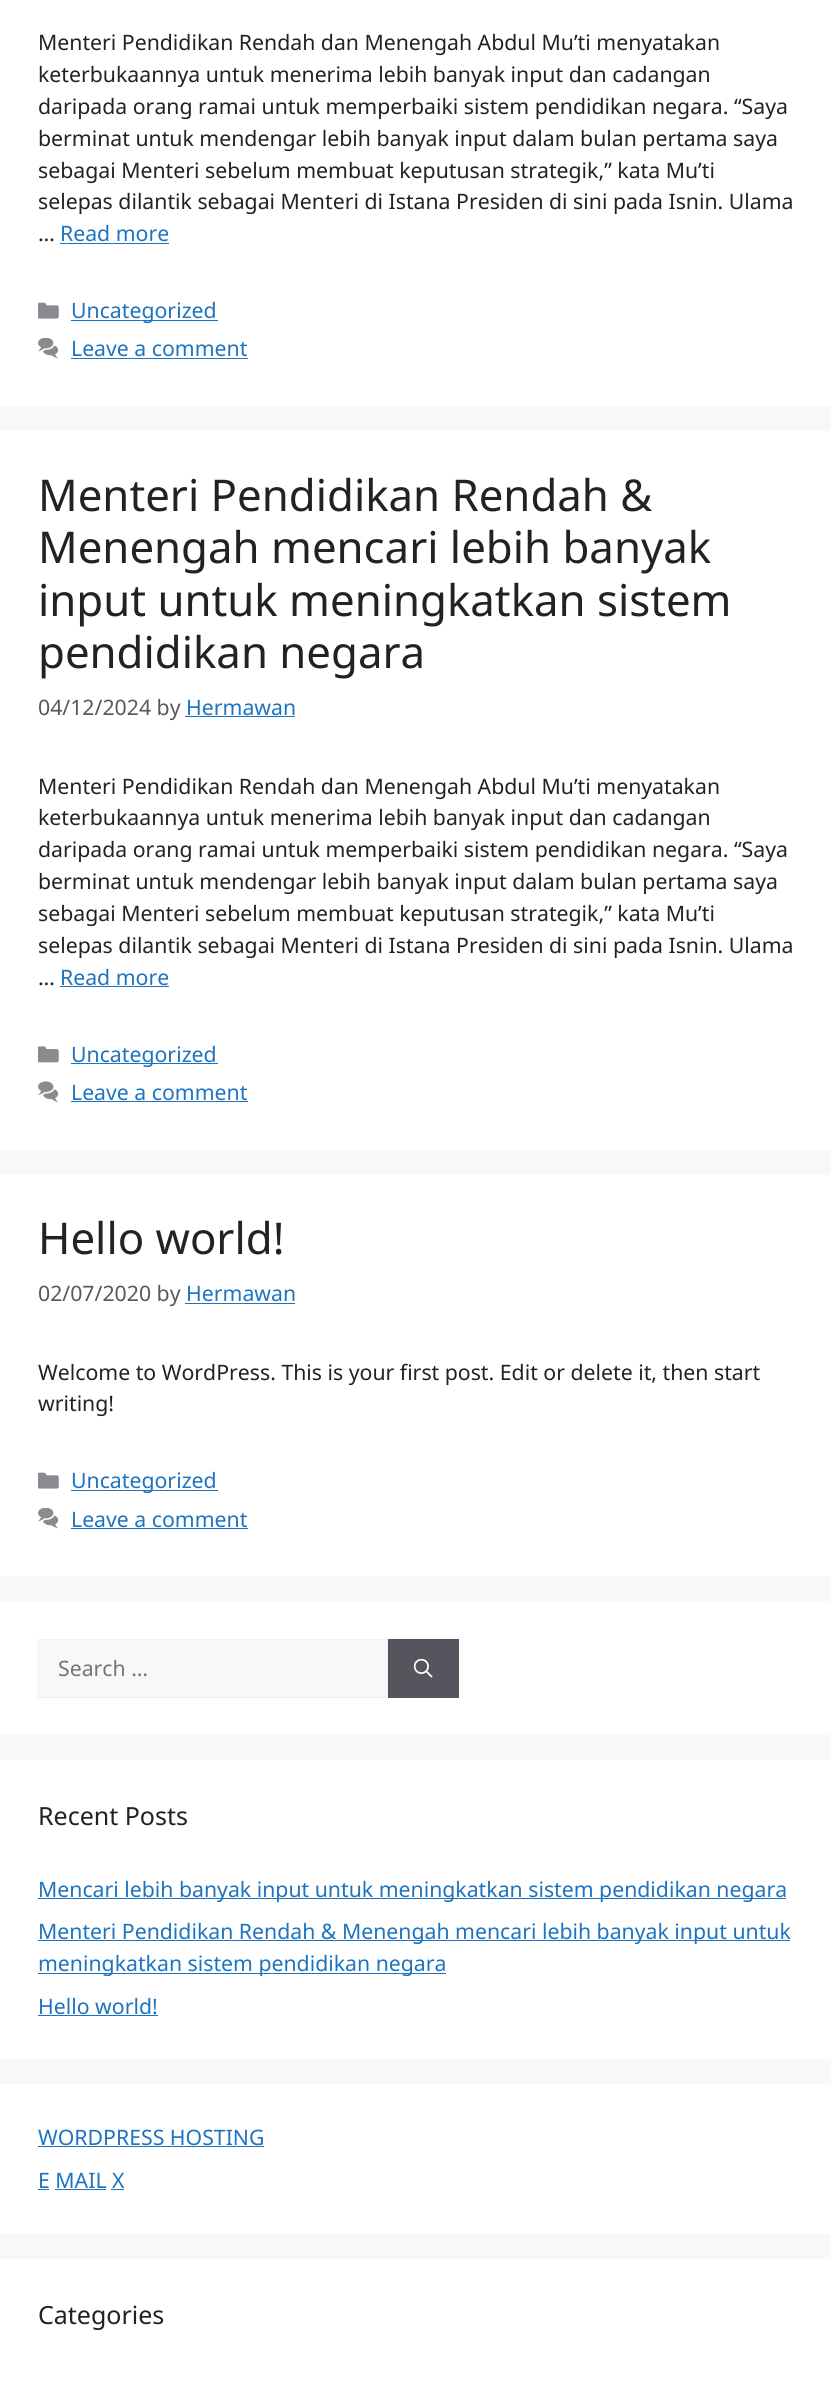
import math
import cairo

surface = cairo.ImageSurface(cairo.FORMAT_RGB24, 831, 2382)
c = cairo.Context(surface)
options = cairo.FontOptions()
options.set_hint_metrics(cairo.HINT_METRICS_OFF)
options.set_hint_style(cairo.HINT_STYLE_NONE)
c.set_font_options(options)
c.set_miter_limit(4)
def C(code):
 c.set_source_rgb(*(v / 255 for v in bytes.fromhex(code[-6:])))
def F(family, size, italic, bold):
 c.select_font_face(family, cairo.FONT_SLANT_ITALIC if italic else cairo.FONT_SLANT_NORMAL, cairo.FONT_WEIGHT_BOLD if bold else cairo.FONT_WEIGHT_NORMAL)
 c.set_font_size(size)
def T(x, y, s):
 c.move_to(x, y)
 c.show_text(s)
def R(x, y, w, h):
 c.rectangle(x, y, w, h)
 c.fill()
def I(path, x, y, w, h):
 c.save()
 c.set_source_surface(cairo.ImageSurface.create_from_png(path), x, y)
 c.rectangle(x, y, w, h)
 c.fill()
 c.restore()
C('f7f8f9')
c.paint()
C('ffffff')
R(0,0,831,406)
F('Noto Sans',21.25,0,0)
C('222222')
T(38,50,'Menteri Pendidikan Rendah dan Menengah Abdul Mu’ti menyatakan')
T(38,82,'keterbukaannya untuk menerima lebih banyak input dan cadangan')
T(38,114,'daripada orang ramai untuk memperbaiki sistem pendidikan negara. “Saya')
T(38,146,'berminat untuk mendengar lebih banyak input dalam bulan pertama saya')
T(38,178,'sebagai Menteri sebelum membuat keputusan strategik,” kata Mu’ti')
T(38,209,'selepas dilantik sebagai Menteri di Istana Presiden di sini pada Isnin. Ulama')
T(38,241,'…')
C('1e73be')
T(60,241,'Read more')
R(60,243,109,1)
I('1.png',38,302,21,17)
R(71,320,147,1)
T(71,318,'Uncategorized')
I('2.png',38,338,21,21)
T(71,356,'Leave a comment')
R(71,358,177,1)
C('ffffff')
R(0,431,831,719)
F('Noto Sans',43.75,0,0)
C('222222')
T(38,511,'Menteri Pendidikan Rendah &')
T(38,563,'Menengah mencari lebih banyak')
T(38,616,'input untuk meningkatkan sistem')
T(38,668,'pendidikan negara')
F('Noto Sans',21.25,0,0)
C('575760')
T(38,715,'04/12/2024 by')
C('1e73be')
T(186,715,'Hermawan')
R(185,716,110,1)
C('222222')
T(38,794,'Menteri Pendidikan Rendah dan Menengah Abdul Mu’ti menyatakan')
T(38,825,'keterbukaannya untuk menerima lebih banyak input dan cadangan')
T(38,857,'daripada orang ramai untuk memperbaiki sistem pendidikan negara. “Saya')
T(38,889,'berminat untuk mendengar lebih banyak input dalam bulan pertama saya')
T(38,921,'sebagai Menteri sebelum membuat keputusan strategik,” kata Mu’ti')
T(38,953,'selepas dilantik sebagai Menteri di Istana Presiden di sini pada Isnin. Ulama')
T(38,985,'…')
C('1e73be')
T(60,985,'Read more')
R(60,986,109,1)
I('3.png',38,1046,21,17)
R(71,1063,147,1)
T(71,1062,'Uncategorized')
I('4.png',38,1081,21,22)
T(71,1100,'Leave a comment')
R(71,1101,177,1)
C('ffffff')
R(0,1175,831,401)
F('Noto Sans',43.75,0,0)
C('222222')
T(38,1254,'Hello world!')
F('Noto Sans',21.25,0,0)
C('575760')
T(38,1301,'02/07/2020 by')
C('1e73be')
T(186,1301,'Hermawan')
R(185,1303,110,1)
C('222222')
T(38,1380,'Welcome to WordPress. This is your first post. Edit or delete it, then start')
T(38,1411,'writing!')
I('1.png',38,1472,21,17)
C('1e73be')
R(71,1490,147,1)
T(71,1488,'Uncategorized')
I('2.png',38,1508,21,21)
T(71,1527,'Leave a comment')
R(71,1528,177,1)
C('ffffff')
R(0,1601,831,134)
C('f7f8f9')
c.rectangle(38.5,1639.5,349,58)
c.fill_preserve()
C('f0f0f0')
c.set_line_width(1)
c.stroke()
C('757575')
T(58,1676,'Search …')
C('55555e')
R(388,1639,71,59)
I('5.png',414,1659,19,19)
C('ffffff')
R(0,1760,831,299)
F('Noto Sans',25,0,0)
C('222222')
T(38,1825,'Recent Posts')
C('1e73be')
R(38,1898,748,1)
F('Noto Sans',21.25,0,0)
T(38,1897,'Mencari lebih banyak input untuk meningkatkan sistem pendidikan negara')
R(38,1940,752,1)
T(38,1939,'Menteri Pendidikan Rendah & Menengah mencari lebih banyak input untuk')
R(38,1973,408,1)
T(38,1971,'meningkatkan sistem pendidikan negara')
T(38,2014,'Hello world!')
R(38,2015,120,1)
C('ffffff')
R(0,2084,831,150)
C('1e73be')
T(38,2145,'WORDPRESS HOSTING')
R(38,2146,226,1)
T(38,2188,'E MAIL X')
R(38,2189,11,1)
R(55,2189,51,1)
R(111,2189,13,1)
C('ffffff')
R(0,2259,831,123)
F('Noto Sans',25,0,0)
C('222222')
T(38,2324,'Categories')
surface.write_to_png('o.png')
